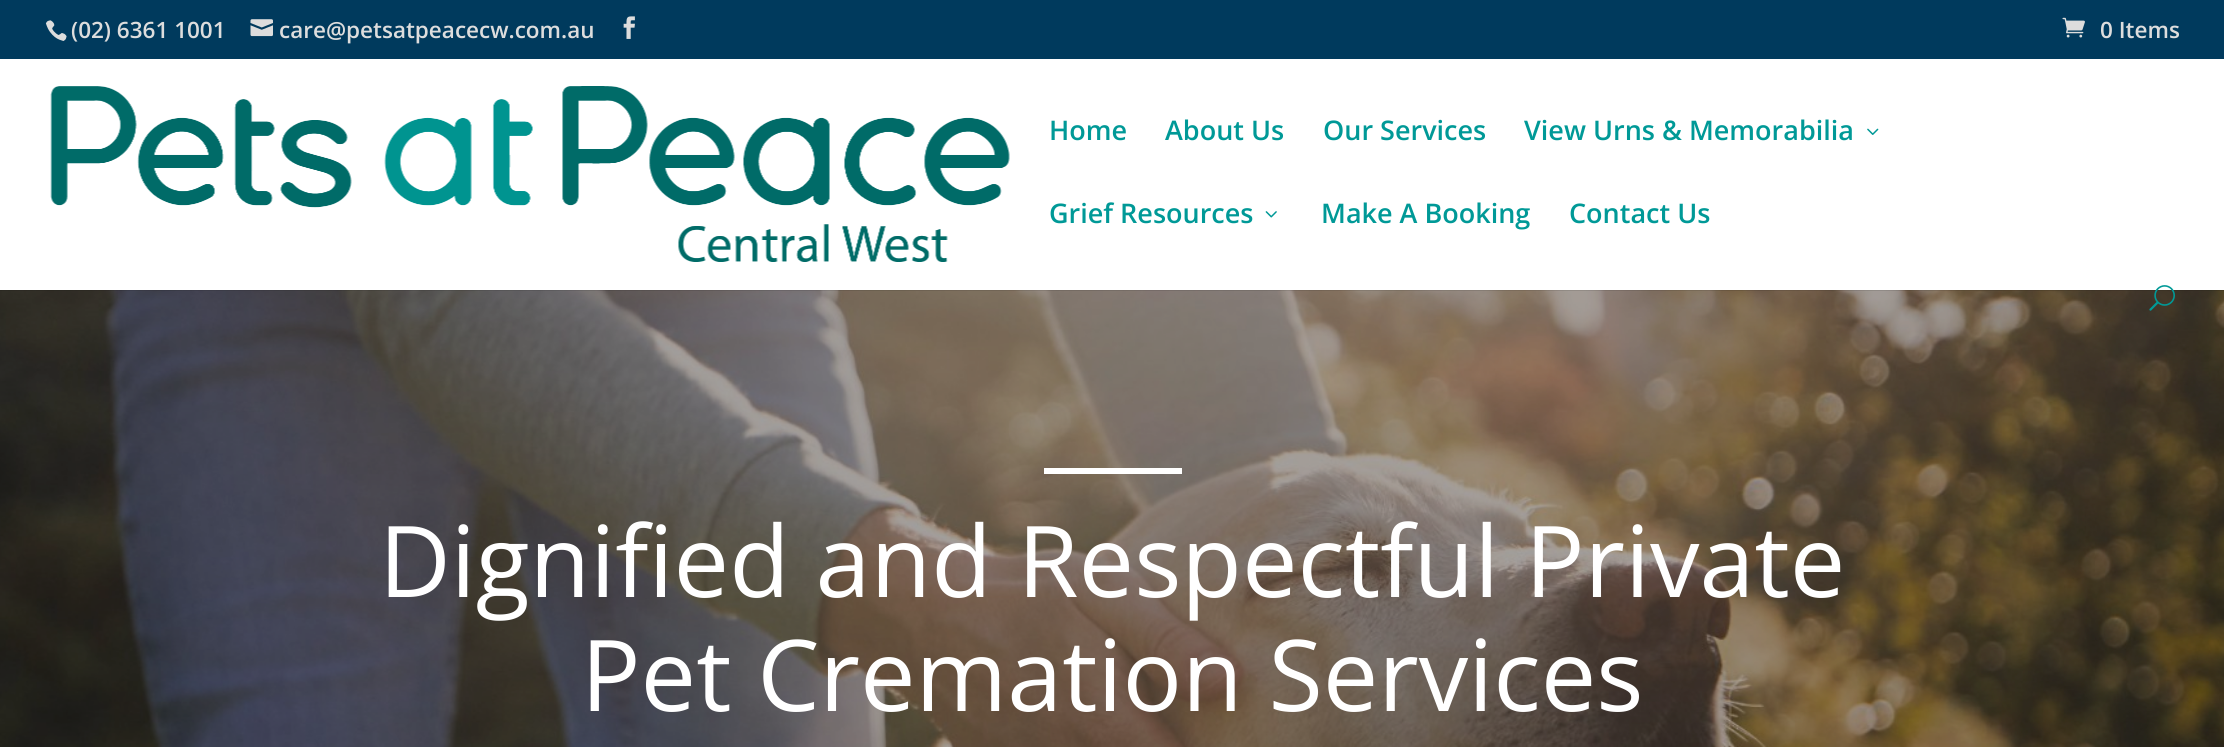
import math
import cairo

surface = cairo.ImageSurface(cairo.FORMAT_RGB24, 2224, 747)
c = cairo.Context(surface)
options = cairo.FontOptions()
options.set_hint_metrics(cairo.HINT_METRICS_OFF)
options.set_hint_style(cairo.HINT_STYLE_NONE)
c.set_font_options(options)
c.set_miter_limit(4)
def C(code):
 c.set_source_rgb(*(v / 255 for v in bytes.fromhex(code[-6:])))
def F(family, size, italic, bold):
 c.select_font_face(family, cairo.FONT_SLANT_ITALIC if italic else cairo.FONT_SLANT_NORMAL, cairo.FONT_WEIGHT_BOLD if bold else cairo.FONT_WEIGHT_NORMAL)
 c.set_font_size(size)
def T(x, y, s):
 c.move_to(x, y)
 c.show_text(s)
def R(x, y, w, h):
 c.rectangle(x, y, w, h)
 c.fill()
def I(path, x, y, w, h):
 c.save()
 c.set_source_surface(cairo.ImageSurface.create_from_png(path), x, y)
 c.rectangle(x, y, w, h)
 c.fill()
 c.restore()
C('ffffff')
c.paint()
C('003a5d')
R(0,0,2224,59)
I('1.png',45,20,22,21)
F('Open Sans SemiBold',22.5,0,0)
C('dddddd')
T(71,38,'(02) 6361 1001')
I('2.png',250,19,23,18)
T(279,38,'care@petsatpeacecw.com.au')
I('3.png',623,16,12,23)
I('4.png',2062,17,23,21)
T(2100,38,'0 Items')
I('9.png',0,290,2224,457)
c.set_source_rgba(0,0,0,0.1)
c.new_path()
c.move_to(0,290)
c.line_to(0,291)
c.line_to(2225,291)
c.line_to(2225,60)
c.line_to(2224,60)
c.line_to(2224,290)
c.close_path()
c.fill()
I('5.png',50,86,960,176)
F('Open Sans SemiBold',27,0,0)
C('009997')
T(1049,140,'Home')
T(1165,140,'About Us')
T(1323,140,'Our Services')
T(1524,140,'View Urns & Memorabilia')
I('6.png',1867,128,12,7)
T(1049,223,'Grief Resources')
I('7.png',1265,211,12,7)
T(1321,223,'Make A Booking')
T(1569,223,'Contact Us')
I('8.png',2149,285,26,26)
C('ffffff')
R(1044,468,138,6)
F('Open Sans',99,0,0)
T(379,597,'Dignified and Respectful Private')
T(581,711,'Pet Cremation Services')
surface.write_to_png('o.png')
